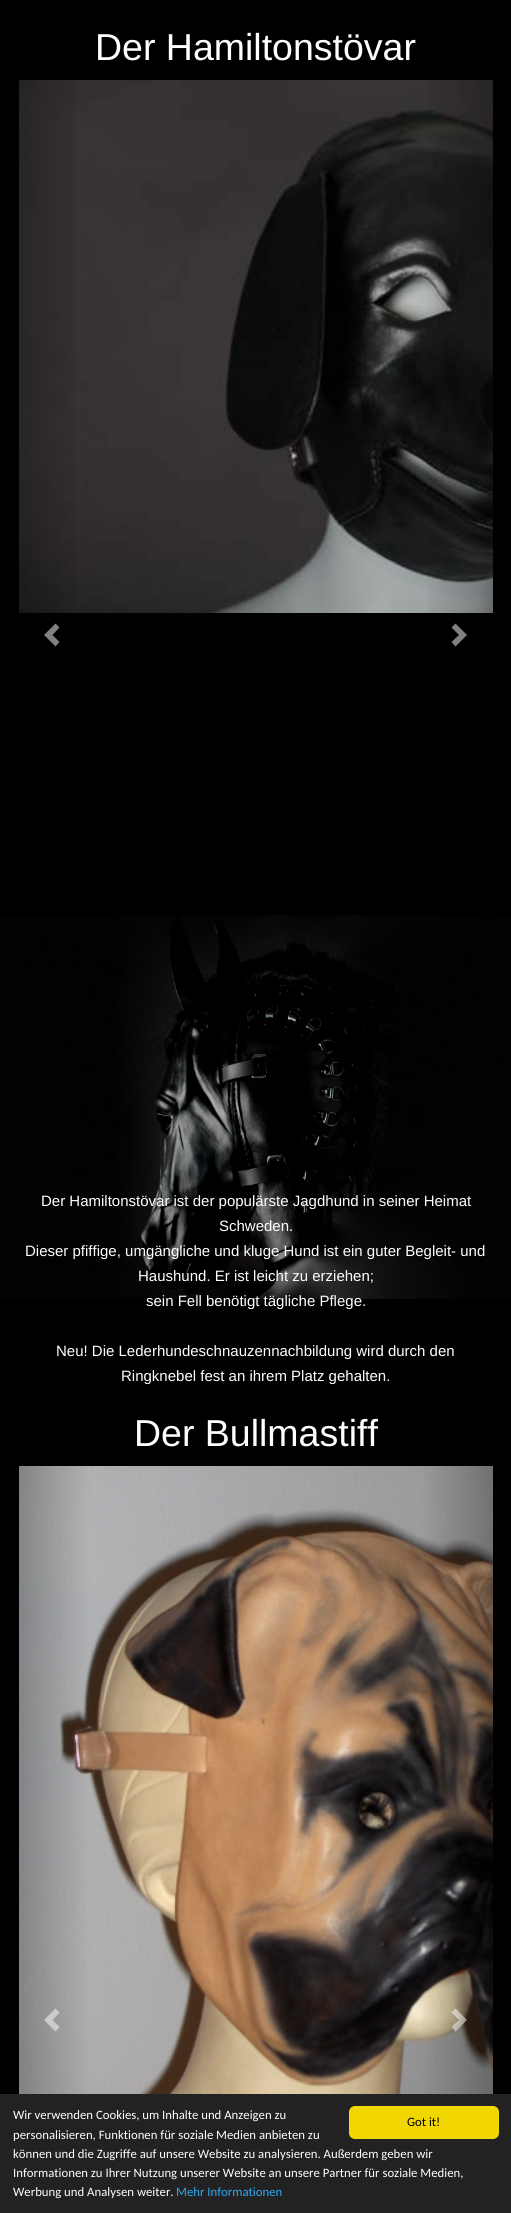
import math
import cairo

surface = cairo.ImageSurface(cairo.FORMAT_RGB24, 511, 2213)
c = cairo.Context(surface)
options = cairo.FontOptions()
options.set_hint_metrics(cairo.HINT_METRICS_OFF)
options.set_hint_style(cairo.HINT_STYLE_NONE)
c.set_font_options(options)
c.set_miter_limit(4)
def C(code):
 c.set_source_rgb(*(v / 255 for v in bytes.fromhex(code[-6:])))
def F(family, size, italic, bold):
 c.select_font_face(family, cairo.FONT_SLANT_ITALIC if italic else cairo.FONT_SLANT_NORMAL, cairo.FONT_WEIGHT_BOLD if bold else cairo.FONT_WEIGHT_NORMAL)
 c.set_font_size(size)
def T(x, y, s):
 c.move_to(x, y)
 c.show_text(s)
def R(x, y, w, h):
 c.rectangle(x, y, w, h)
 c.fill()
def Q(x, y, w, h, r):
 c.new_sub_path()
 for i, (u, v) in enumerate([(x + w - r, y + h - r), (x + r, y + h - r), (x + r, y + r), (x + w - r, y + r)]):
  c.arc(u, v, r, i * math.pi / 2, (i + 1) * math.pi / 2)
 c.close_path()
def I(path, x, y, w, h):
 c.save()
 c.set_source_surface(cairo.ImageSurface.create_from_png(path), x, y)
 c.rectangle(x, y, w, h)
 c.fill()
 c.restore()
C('000000')
c.paint()
I('1.png',0,915,511,384)
F('Liberation Sans',37.5,0,0)
C('ffffff')
T(95,60,'Der Hamiltonstövar')
I('2.png',19,80,474,533)
gradient = cairo.LinearGradient(19,634,90,634)
gradient.add_color_stop_rgba(0,0,0,0,.25)
gradient.add_color_stop_rgba(1,0,0,0,0)
c.set_source(gradient)
R(19,80,57,533)
C('808080')
c.new_path()
c.move_to(59.5,627.5)
c.line_to(52.5,635)
c.line_to(59.5,642)
c.line_to(55.5,646.5)
c.line_to(44,635)
c.line_to(55.5,623.5)
c.close_path()
c.fill()
gradient = cairo.LinearGradient(421,634,493,634)
gradient.add_color_stop_rgba(0,0,0,0,0)
gradient.add_color_stop_rgba(1,0,0,0,.25)
c.set_source(gradient)
R(427,80,66,533)
C('808080')
c.new_path()
c.move_to(467,635)
c.line_to(455.5,646.5)
c.line_to(451.5,642)
c.line_to(459,635)
c.line_to(451.5,627.5)
c.line_to(455.5,623.5)
c.close_path()
c.fill()
F('Liberation Sans',15,0,0)
C('ffffff')
T(41,1206,'Der Hamiltonstövar ist der populärste Jagdhund in seiner Heimat')
T(219,1231,'Schweden.')
T(25,1256,'Dieser pfiffige, umgängliche und kluge Hund ist ein guter Begleit- und')
T(138,1281,'Haushund. Er ist leicht zu erziehen;')
T(146,1306,'sein Fell benötigt tägliche Pflege.')
T(56,1356,'Neu! Die Lederhundeschnauzennachbildung wird durch den')
T(121,1381,'Ringknebel fest an ihrem Platz gehalten.')
F('Liberation Sans',37.5,0,0)
T(134,1446,'Der Bullmastiff')
I('3.png',19,1466,474,628)
c.set_source_rgba(1,1,1,0.5)
c.new_path()
c.move_to(59.5,2012.5)
c.line_to(52.5,2020)
c.line_to(59.5,2027)
c.line_to(55.5,2031.5)
c.line_to(44,2020)
c.line_to(55.5,2008.5)
c.close_path()
c.fill()
c.new_path()
c.move_to(467,2020)
c.line_to(455.5,2031.5)
c.line_to(451.5,2027)
c.line_to(459,2020)
c.line_to(451.5,2012.5)
c.line_to(455.5,2008.5)
c.close_path()
c.fill()
C('222222')
R(0,2094,511,119)
F('Carlito',12.75,0,0)
C('ffffff')
T(13,2119,'Wir verwenden Cookies, um Inhalte und Anzeigen zu')
T(13,2139,'personalisieren, Funktionen für soziale Medien anbieten zu')
T(13,2158,'können und die Zugriffe auf unsere Website zu analysieren. Außerdem geben wir')
T(13,2177,'Informationen zu Ihrer Nutzung unserer Website an unsere Partner für soziale Medien,')
T(13,2196,'Werbung und Analysen weiter.')
C('31a8f0')
T(176,2196,'Mehr Informationen')
C('f1d600')
Q(349,2106,150,33,6)
c.fill()
C('000000')
T(407,2126,'Got it!')
surface.write_to_png('o.png')
